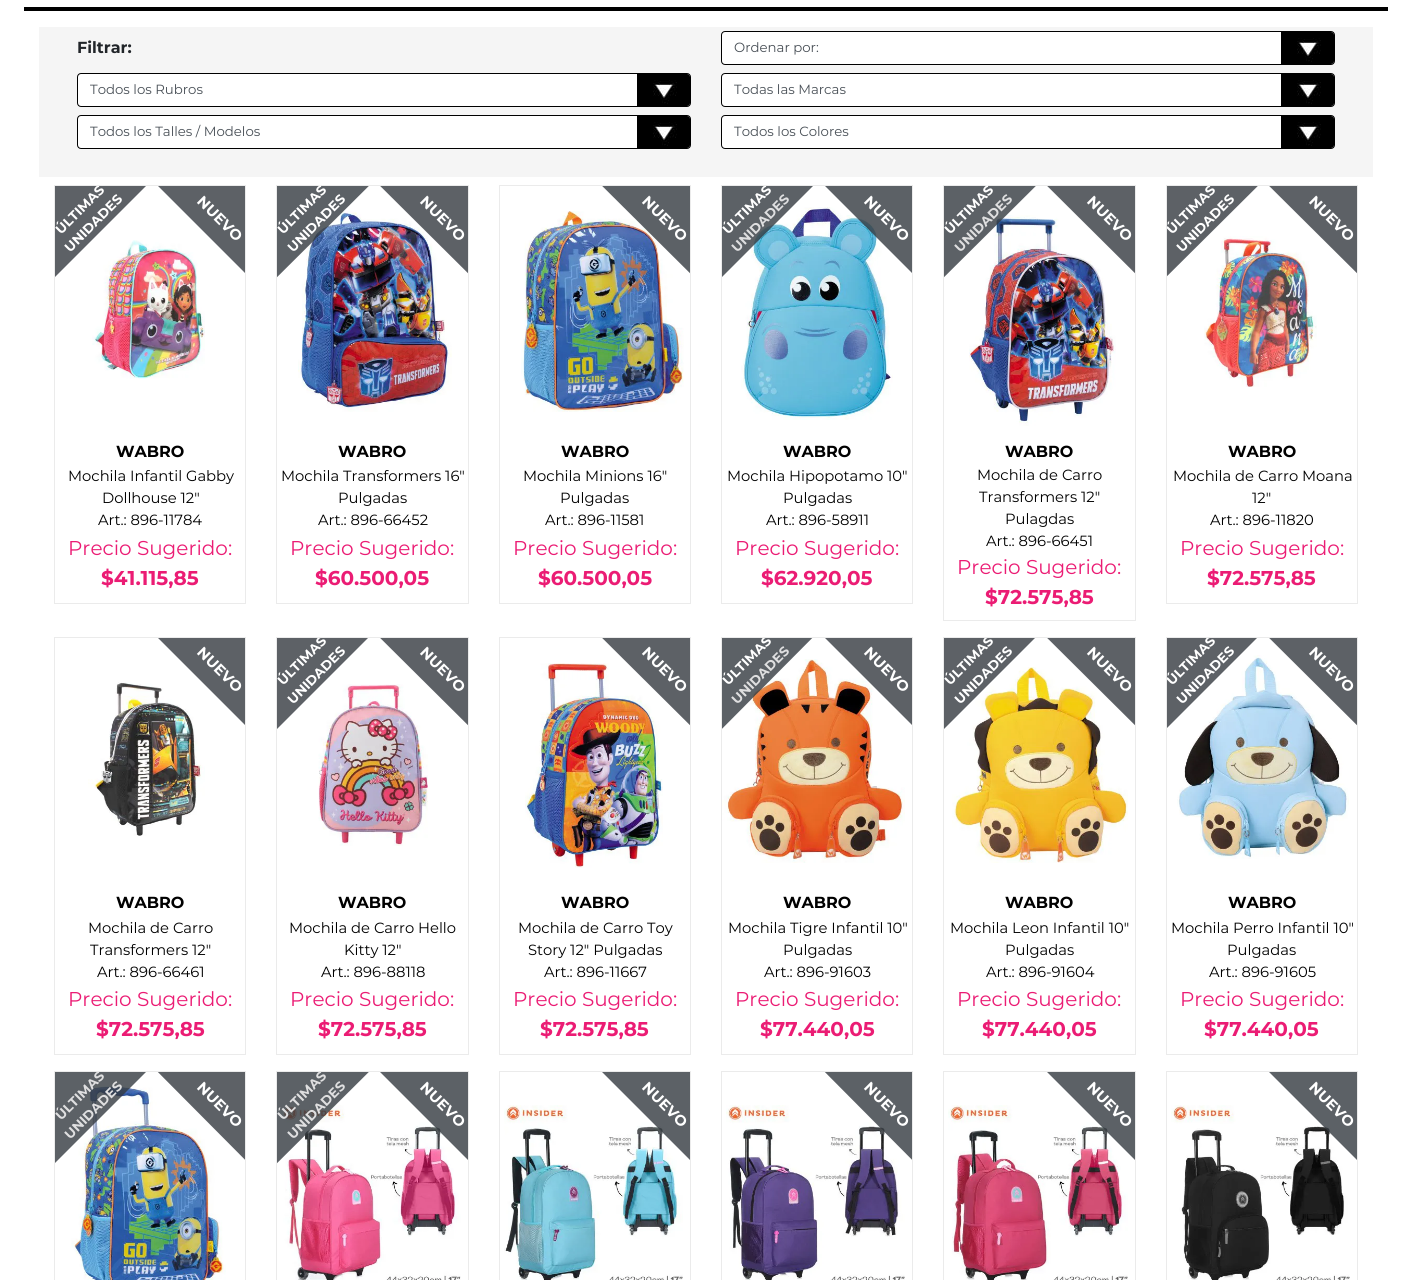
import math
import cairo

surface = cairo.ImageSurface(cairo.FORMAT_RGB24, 1412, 1280)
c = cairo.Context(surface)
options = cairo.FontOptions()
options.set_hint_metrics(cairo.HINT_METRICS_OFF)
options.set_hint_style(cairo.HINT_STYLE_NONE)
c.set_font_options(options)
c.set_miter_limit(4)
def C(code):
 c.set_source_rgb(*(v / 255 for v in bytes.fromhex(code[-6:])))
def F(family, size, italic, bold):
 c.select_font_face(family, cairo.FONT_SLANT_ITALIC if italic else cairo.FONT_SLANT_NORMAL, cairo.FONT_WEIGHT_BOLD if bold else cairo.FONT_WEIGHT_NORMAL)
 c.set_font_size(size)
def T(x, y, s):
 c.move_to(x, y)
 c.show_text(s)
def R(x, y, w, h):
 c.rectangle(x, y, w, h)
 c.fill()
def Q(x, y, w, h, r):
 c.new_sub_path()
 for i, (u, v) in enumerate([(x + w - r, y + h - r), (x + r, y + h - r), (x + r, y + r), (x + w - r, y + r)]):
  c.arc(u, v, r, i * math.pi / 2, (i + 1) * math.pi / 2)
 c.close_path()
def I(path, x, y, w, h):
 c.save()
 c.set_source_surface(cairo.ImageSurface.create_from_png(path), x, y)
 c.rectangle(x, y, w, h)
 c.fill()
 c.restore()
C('ffffff')
c.paint()
C('000000')
R(24,7,1364,4)
C('f5f5f5')
R(39,27,1334,150)
F('Montserrat',16,0,1)
C('212529')
T(77,53,'Filtrar:')
C('ffffff')
Q(722,32,612,32,3)
c.fill()
I('1.png',1281,32,53,32)
Q(721.5,31.5,613,33,3.5)
C('000000')
c.set_line_width(1)
c.stroke()
F('Montserrat',13.3,0,0)
C('495057')
T(734,52,'Ordenar por:')
C('ffffff')
Q(78,74,612,32,3)
c.fill()
I('1.png',637,74,53,32)
Q(77.5,73.5,613,33,3.5)
C('000000')
c.stroke()
C('495057')
T(90,94,'Todos los Rubros')
C('ffffff')
Q(722,74,612,32,3)
c.fill()
I('1.png',1281,74,53,32)
Q(721.5,73.5,613,33,3.5)
C('000000')
c.stroke()
C('495057')
T(734,94,'Todas las Marcas')
C('ffffff')
Q(78,116,612,32,3)
c.fill()
I('1.png',637,116,53,32)
Q(77.5,115.5,613,33,3.5)
C('000000')
c.stroke()
C('495057')
T(90,136,'Todos los Talles / Modelos')
C('ffffff')
Q(722,116,612,32,3)
c.fill()
I('1.png',1281,116,53,32)
Q(721.5,115.5,613,33,3.5)
C('000000')
c.stroke()
C('495057')
T(734,136,'Todos los Colores')
c.rectangle(54.5,185.5,191,418)
C('ebebeb')
c.stroke()
I('2.png',92,240,113,139)
c.save()
c.rectangle(55,186,190,417)
c.clip()
C('5d6166')
c.new_path()
c.move_to(-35,243)
c.line_to(113,95)
c.line_to(175,157)
c.line_to(27,305)
c.close_path()
c.fill()
F('Montserrat',13.3,0,1)
C('ffffff')
c.save()
c.translate(61,235)
c.rotate(-45 * math.pi / 180)
T(0,0,'ÚLTIMAS')
c.restore()
c.restore()
F('Montserrat',13.3,0,1)
C('ffffff')
c.save()
c.translate(70,253)
c.rotate(-45 * math.pi / 180)
T(0,0,'UNIDADES')
c.restore()
c.save()
c.rectangle(55,186,190,417)
c.clip()
C('5d6166')
c.new_path()
c.move_to(187,102)
c.line_to(336,251)
c.line_to(279,307)
c.line_to(131,159)
c.close_path()
c.fill()
c.restore()
F('Montserrat',14.75,0,1)
c.save()
c.translate(196,202)
c.rotate(45 * math.pi / 180)
T(0,0,'NUEVO')
c.restore()
F('Montserrat',16,0,1)
C('000000')
T(116,457,'WABRO')
F('Montserrat',14.75,0,0)
T(68,481,'Mochila Infantil Gabby')
T(102,503,'Dollhouse 12"')
T(98,525,'Art.: 896-11784')
F('Montserrat',20,0,0)
C('eb1c74')
T(68,555,'Precio Sugerido:')
F('Montserrat',20,0,1)
T(101,585,'$41.115,85')
c.rectangle(276.5,185.5,192,418)
C('ebebeb')
c.stroke()
I('3.png',298,210,154,202)
c.save()
c.rectangle(277,186,191,417)
c.clip()
c.set_source_rgba(0.204,0.227,0.251,0.8)
c.new_path()
c.move_to(187,243)
c.line_to(335,95)
c.line_to(398,157)
c.line_to(249,305)
c.close_path()
c.fill()
c.restore()
F('Montserrat',13.3,0,1)
C('ffffff')
c.save()
c.translate(283,235)
c.rotate(-45 * math.pi / 180)
T(0,0,'ÚLTIMAS')
c.restore()
c.save()
c.translate(293,253)
c.rotate(-45 * math.pi / 180)
T(0,0,'UNIDADES')
c.restore()
c.save()
c.rectangle(277,186,191,417)
c.clip()
C('5d6166')
c.new_path()
c.move_to(410,102)
c.line_to(558,251)
c.line_to(502,307)
c.line_to(353,159)
c.close_path()
c.fill()
c.restore()
F('Montserrat',14.75,0,1)
c.save()
c.translate(419,202)
c.rotate(45 * math.pi / 180)
T(0,0,'NUEVO')
c.restore()
F('Montserrat',16,0,1)
C('000000')
T(338,457,'WABRO')
F('Montserrat',14.75,0,0)
T(281,481,'Mochila Transformers 16"')
T(338,503,'Pulgadas')
T(318,525,'Art.: 896-66452')
F('Montserrat',20,0,0)
C('eb1c74')
T(290,555,'Precio Sugerido:')
F('Montserrat',20,0,1)
T(315,585,'$60.500,05')
c.rectangle(499.5,185.5,191,418)
C('ebebeb')
c.stroke()
I('4.png',521,211,163,201)
c.save()
c.rectangle(500,186,190,417)
c.clip()
c.set_source_rgba(0.204,0.227,0.251,0.8)
c.new_path()
c.move_to(632,102)
c.line_to(781,251)
c.line_to(724,307)
c.line_to(575,159)
c.close_path()
c.fill()
c.restore()
F('Montserrat',14.75,0,1)
C('ffffff')
c.save()
c.translate(641,202)
c.rotate(45 * math.pi / 180)
T(0,0,'NUEVO')
c.restore()
F('Montserrat',16,0,1)
C('000000')
T(561,457,'WABRO')
F('Montserrat',14.75,0,0)
T(523,481,'Mochila Minions 16"')
T(560,503,'Pulgadas')
T(545,525,'Art.: 896-11581')
F('Montserrat',20,0,0)
C('eb1c74')
T(513,555,'Precio Sugerido:')
F('Montserrat',20,0,1)
T(538,585,'$60.500,05')
c.rectangle(721.5,185.5,191,418)
C('ebebeb')
c.stroke()
I('5.png',741,207,152,213)
c.save()
c.rectangle(722,186,190,417)
c.clip()
c.set_source_rgba(0.204,0.227,0.251,0.8)
c.new_path()
c.move_to(632,243)
c.line_to(780,95)
c.line_to(842,157)
c.line_to(694,305)
c.close_path()
c.fill()
F('Montserrat',13.3,0,1)
C('ffffff')
c.save()
c.translate(728,235)
c.rotate(-45 * math.pi / 180)
T(0,0,'ÚLTIMAS')
c.restore()
c.restore()
F('Montserrat',13.3,0,1)
C('dfdfe0')
c.save()
c.translate(737,253)
c.rotate(-45 * math.pi / 180)
T(0,0,'UNIDADES')
c.restore()
c.save()
c.rectangle(722,186,190,417)
c.clip()
c.set_source_rgba(0.204,0.227,0.251,0.8)
c.new_path()
c.move_to(854,102)
c.line_to(1003,251)
c.line_to(946,307)
c.line_to(798,159)
c.close_path()
c.fill()
c.restore()
F('Montserrat',14.75,0,1)
C('ffffff')
c.save()
c.translate(863,202)
c.rotate(45 * math.pi / 180)
T(0,0,'NUEVO')
c.restore()
F('Montserrat',16,0,1)
C('000000')
T(783,457,'WABRO')
F('Montserrat',14.75,0,0)
T(727,481,'Mochila Hipopotamo 10"')
T(783,503,'Pulgadas')
T(766,525,'Art.: 896-58911')
F('Montserrat',20,0,0)
C('eb1c74')
T(735,555,'Precio Sugerido:')
F('Montserrat',20,0,1)
T(761,585,'$62.920,05')
c.rectangle(943.5,185.5,192,435)
C('ebebeb')
c.stroke()
I('6.png',969,215,147,211)
c.save()
c.rectangle(944,186,191,434)
c.clip()
c.set_source_rgba(0.204,0.227,0.251,0.8)
c.new_path()
c.move_to(854,243)
c.line_to(1002,95)
c.line_to(1065,157)
c.line_to(916,305)
c.close_path()
c.fill()
c.restore()
F('Montserrat',13.3,0,1)
C('ffffff')
c.save()
c.translate(950,235)
c.rotate(-45 * math.pi / 180)
T(0,0,'ÚLTIMAS')
c.restore()
C('dfdfe0')
c.save()
c.translate(960,253)
c.rotate(-45 * math.pi / 180)
T(0,0,'UNIDADES')
c.restore()
c.save()
c.rectangle(944,186,191,434)
c.clip()
C('5d6166')
c.new_path()
c.move_to(1077,102)
c.line_to(1225,251)
c.line_to(1169,307)
c.line_to(1020,159)
c.close_path()
c.fill()
c.restore()
F('Montserrat',14.75,0,1)
C('ffffff')
c.save()
c.translate(1086,202)
c.rotate(45 * math.pi / 180)
T(0,0,'NUEVO')
c.restore()
F('Montserrat',16,0,1)
C('000000')
T(1005,457,'WABRO')
F('Montserrat',14.75,0,0)
T(977,480,'Mochila de Carro')
T(979,502,'Transformers 12"')
T(1005,524,'Pulagdas')
T(986,546,'Art.: 896-66451')
F('Montserrat',20,0,0)
C('eb1c74')
T(957,574,'Precio Sugerido:')
F('Montserrat',20,0,1)
T(985,604,'$72.575,85')
c.rectangle(1166.5,185.5,191,418)
C('ebebeb')
c.stroke()
I('7.png',1204,236,113,151)
c.save()
c.rectangle(1167,186,190,417)
c.clip()
C('5d6166')
c.new_path()
c.move_to(1076,243)
c.line_to(1225,95)
c.line_to(1287,157)
c.line_to(1138,305)
c.close_path()
c.fill()
F('Montserrat',13.3,0,1)
C('ffffff')
c.save()
c.translate(1172,235)
c.rotate(-45 * math.pi / 180)
T(0,0,'ÚLTIMAS')
c.restore()
c.restore()
F('Montserrat',13.3,0,1)
C('ffffff')
c.save()
c.translate(1182,253)
c.rotate(-45 * math.pi / 180)
T(0,0,'UNIDADES')
c.restore()
c.save()
c.rectangle(1167,186,190,417)
c.clip()
C('5d6166')
c.new_path()
c.move_to(1299,102)
c.line_to(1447,251)
c.line_to(1391,307)
c.line_to(1242,159)
c.close_path()
c.fill()
c.restore()
F('Montserrat',14.75,0,1)
c.save()
c.translate(1308,202)
c.rotate(45 * math.pi / 180)
T(0,0,'NUEVO')
c.restore()
F('Montserrat',16,0,1)
C('000000')
T(1228,457,'WABRO')
F('Montserrat',14.75,0,0)
T(1173,481,'Mochila de Carro Moana')
T(1252,503,'12"')
T(1210,525,'Art.: 896-11820')
F('Montserrat',20,0,0)
C('eb1c74')
T(1180,555,'Precio Sugerido:')
F('Montserrat',20,0,1)
T(1207,585,'$72.575,85')
c.rectangle(54.5,637.5,191,417)
C('ebebeb')
c.stroke()
I('8.png',88,682,117,154)
c.save()
c.rectangle(55,638,190,416)
c.clip()
C('5d6166')
c.new_path()
c.move_to(187,554)
c.line_to(336,702)
c.line_to(279,759)
c.line_to(131,611)
c.close_path()
c.fill()
c.restore()
F('Montserrat',14.75,0,1)
C('ffffff')
c.save()
c.translate(196,653)
c.rotate(45 * math.pi / 180)
T(0,0,'NUEVO')
c.restore()
F('Montserrat',16,0,1)
C('000000')
T(116,908,'WABRO')
F('Montserrat',14.75,0,0)
T(88,933,'Mochila de Carro')
T(90,955,'Transformers 12"')
T(97,977,'Art.: 896-66461')
F('Montserrat',20,0,0)
C('eb1c74')
T(68,1006,'Precio Sugerido:')
F('Montserrat',20,0,1)
T(96,1036,'$72.575,85')
c.rectangle(276.5,637.5,192,417)
C('ebebeb')
c.stroke()
I('9.png',318,684,110,162)
c.save()
c.rectangle(277,638,191,416)
c.clip()
C('5d6166')
c.new_path()
c.move_to(187,695)
c.line_to(335,546)
c.line_to(398,608)
c.line_to(249,757)
c.close_path()
c.fill()
F('Montserrat',13.3,0,1)
C('ffffff')
c.save()
c.translate(283,686)
c.rotate(-45 * math.pi / 180)
T(0,0,'ÚLTIMAS')
c.restore()
c.restore()
F('Montserrat',13.3,0,1)
C('ffffff')
c.save()
c.translate(293,705)
c.rotate(-45 * math.pi / 180)
T(0,0,'UNIDADES')
c.restore()
c.save()
c.rectangle(277,638,191,416)
c.clip()
C('5d6166')
c.new_path()
c.move_to(410,554)
c.line_to(558,702)
c.line_to(502,759)
c.line_to(353,611)
c.close_path()
c.fill()
c.restore()
F('Montserrat',14.75,0,1)
c.save()
c.translate(419,653)
c.rotate(45 * math.pi / 180)
T(0,0,'NUEVO')
c.restore()
F('Montserrat',16,0,1)
C('000000')
T(338,908,'WABRO')
F('Montserrat',14.75,0,0)
T(289,933,'Mochila de Carro Hello')
T(344,955,'Kitty 12"')
T(321,977,'Art.: 896-88118')
F('Montserrat',20,0,0)
C('eb1c74')
T(290,1006,'Precio Sugerido:')
F('Montserrat',20,0,1)
T(318,1036,'$72.575,85')
c.rectangle(499.5,637.5,191,417)
C('ebebeb')
c.stroke()
I('10.png',525,663,138,205)
c.save()
c.rectangle(500,638,190,416)
c.clip()
C('5d6166')
c.new_path()
c.move_to(632,554)
c.line_to(781,702)
c.line_to(724,759)
c.line_to(575,611)
c.close_path()
c.fill()
c.restore()
F('Montserrat',14.75,0,1)
C('ffffff')
c.save()
c.translate(641,653)
c.rotate(45 * math.pi / 180)
T(0,0,'NUEVO')
c.restore()
F('Montserrat',16,0,1)
C('000000')
T(561,908,'WABRO')
F('Montserrat',14.75,0,0)
T(518,933,'Mochila de Carro Toy')
T(528,955,'Story 12" Pulgadas')
T(544,977,'Art.: 896-11667')
F('Montserrat',20,0,0)
C('eb1c74')
T(513,1006,'Precio Sugerido:')
F('Montserrat',20,0,1)
T(540,1036,'$72.575,85')
c.rectangle(721.5,637.5,191,417)
C('ebebeb')
c.stroke()
I('11.png',722,659,183,204)
c.save()
c.rectangle(722,638,190,416)
c.clip()
c.set_source_rgba(0.204,0.227,0.251,0.8)
c.new_path()
c.move_to(632,695)
c.line_to(780,546)
c.line_to(842,608)
c.line_to(694,757)
c.close_path()
c.fill()
F('Montserrat',13.3,0,1)
C('ffffff')
c.save()
c.translate(728,686)
c.rotate(-45 * math.pi / 180)
T(0,0,'ÚLTIMAS')
c.restore()
c.restore()
F('Montserrat',13.3,0,1)
C('dfdfe0')
c.save()
c.translate(737,705)
c.rotate(-45 * math.pi / 180)
T(0,0,'UNIDADES')
c.restore()
c.save()
c.rectangle(722,638,190,416)
c.clip()
C('5d6166')
c.new_path()
c.move_to(854,554)
c.line_to(1003,702)
c.line_to(946,759)
c.line_to(798,611)
c.close_path()
c.fill()
c.restore()
F('Montserrat',14.75,0,1)
C('ffffff')
c.save()
c.translate(863,653)
c.rotate(45 * math.pi / 180)
T(0,0,'NUEVO')
c.restore()
F('Montserrat',16,0,1)
C('000000')
T(783,908,'WABRO')
F('Montserrat',14.75,0,0)
T(728,933,'Mochila Tigre Infantil 10"')
T(783,955,'Pulgadas')
T(764,977,'Art.: 896-91603')
F('Montserrat',20,0,0)
C('eb1c74')
T(735,1006,'Precio Sugerido:')
F('Montserrat',20,0,1)
T(760,1036,'$77.440,05')
c.rectangle(943.5,637.5,192,417)
C('ebebeb')
c.stroke()
I('12.png',952,667,176,196)
c.save()
c.rectangle(944,638,191,416)
c.clip()
C('5d6166')
c.new_path()
c.move_to(854,695)
c.line_to(1002,546)
c.line_to(1065,608)
c.line_to(916,757)
c.close_path()
c.fill()
F('Montserrat',13.3,0,1)
C('ffffff')
c.save()
c.translate(950,686)
c.rotate(-45 * math.pi / 180)
T(0,0,'ÚLTIMAS')
c.restore()
c.restore()
F('Montserrat',13.3,0,1)
C('ffffff')
c.save()
c.translate(960,705)
c.rotate(-45 * math.pi / 180)
T(0,0,'UNIDADES')
c.restore()
c.save()
c.rectangle(944,638,191,416)
c.clip()
C('5d6166')
c.new_path()
c.move_to(1077,554)
c.line_to(1225,702)
c.line_to(1169,759)
c.line_to(1020,611)
c.close_path()
c.fill()
c.restore()
F('Montserrat',14.75,0,1)
c.save()
c.translate(1086,653)
c.rotate(45 * math.pi / 180)
T(0,0,'NUEVO')
c.restore()
F('Montserrat',16,0,1)
C('000000')
T(1005,908,'WABRO')
F('Montserrat',14.75,0,0)
T(950,933,'Mochila Leon Infantil 10"')
T(1005,955,'Pulgadas')
T(986,977,'Art.: 896-91604')
F('Montserrat',20,0,0)
C('eb1c74')
T(957,1006,'Precio Sugerido:')
F('Montserrat',20,0,1)
T(982,1036,'$77.440,05')
c.rectangle(1166.5,637.5,191,417)
C('ebebeb')
c.stroke()
I('13.png',1177,655,172,204)
c.save()
c.rectangle(1167,638,190,416)
c.clip()
C('5d6166')
c.new_path()
c.move_to(1076,695)
c.line_to(1225,546)
c.line_to(1287,608)
c.line_to(1138,757)
c.close_path()
c.fill()
F('Montserrat',13.3,0,1)
C('ffffff')
c.save()
c.translate(1172,686)
c.rotate(-45 * math.pi / 180)
T(0,0,'ÚLTIMAS')
c.restore()
c.restore()
F('Montserrat',13.3,0,1)
C('ffffff')
c.save()
c.translate(1182,705)
c.rotate(-45 * math.pi / 180)
T(0,0,'UNIDADES')
c.restore()
c.save()
c.rectangle(1167,638,190,416)
c.clip()
C('5d6166')
c.new_path()
c.move_to(1299,554)
c.line_to(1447,702)
c.line_to(1391,759)
c.line_to(1242,611)
c.close_path()
c.fill()
c.restore()
F('Montserrat',14.75,0,1)
c.save()
c.translate(1308,653)
c.rotate(45 * math.pi / 180)
T(0,0,'NUEVO')
c.restore()
F('Montserrat',16,0,1)
C('000000')
T(1228,908,'WABRO')
F('Montserrat',14.75,0,0)
T(1171,933,'Mochila Perro Infantil 10"')
T(1227,955,'Pulgadas')
T(1209,977,'Art.: 896-91605')
F('Montserrat',20,0,0)
C('eb1c74')
T(1180,1006,'Precio Sugerido:')
F('Montserrat',20,0,1)
T(1204,1036,'$77.440,05')
c.rectangle(54.5,1071.5,191,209)
C('ebebeb')
c.stroke()
I('14.png',71,1084,155,196)
c.save()
c.rectangle(55,1072,190,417)
c.clip()
c.set_source_rgba(0.204,0.227,0.251,0.8)
c.new_path()
c.move_to(-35,1129)
c.line_to(113,981)
c.line_to(175,1043)
c.line_to(27,1191)
c.close_path()
c.fill()
F('Montserrat',13.3,0,1)
C('dfdfe0')
c.save()
c.translate(61,1121)
c.rotate(-45 * math.pi / 180)
T(0,0,'ÚLTIMAS')
c.restore()
c.restore()
F('Montserrat',13.3,0,1)
C('dfdfe0')
c.save()
c.translate(70,1140)
c.rotate(-45 * math.pi / 180)
T(0,0,'UNIDADES')
c.restore()
c.save()
c.rectangle(55,1072,190,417)
c.clip()
C('5d6166')
c.new_path()
c.move_to(187,989)
c.line_to(336,1137)
c.line_to(279,1194)
c.line_to(131,1045)
c.close_path()
c.fill()
c.restore()
F('Montserrat',14.75,0,1)
C('ffffff')
c.save()
c.translate(196,1088)
c.rotate(45 * math.pi / 180)
T(0,0,'NUEVO')
c.restore()
c.rectangle(276.5,1071.5,192,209)
C('ebebeb')
c.stroke()
I('15.png',281,1105,180,175)
c.save()
c.rectangle(277,1072,191,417)
c.clip()
c.set_source_rgba(0.204,0.227,0.251,0.8)
c.new_path()
c.move_to(187,1129)
c.line_to(335,981)
c.line_to(398,1043)
c.line_to(249,1191)
c.close_path()
c.fill()
c.restore()
F('Montserrat',13.3,0,1)
C('dfdfe0')
c.save()
c.translate(283,1121)
c.rotate(-45 * math.pi / 180)
T(0,0,'ÚLTIMAS')
c.restore()
c.save()
c.translate(293,1140)
c.rotate(-45 * math.pi / 180)
T(0,0,'UNIDADES')
c.restore()
c.save()
c.rectangle(277,1072,191,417)
c.clip()
c.set_source_rgba(0.204,0.227,0.251,0.8)
c.new_path()
c.move_to(410,989)
c.line_to(558,1137)
c.line_to(502,1194)
c.line_to(353,1045)
c.close_path()
c.fill()
c.restore()
F('Montserrat',14.75,0,1)
C('ffffff')
c.save()
c.translate(419,1088)
c.rotate(45 * math.pi / 180)
T(0,0,'NUEVO')
c.restore()
c.rectangle(499.5,1071.5,191,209)
C('ebebeb')
c.stroke()
I('16.png',504,1105,179,175)
c.save()
c.rectangle(500,1072,190,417)
c.clip()
c.set_source_rgba(0.204,0.227,0.251,0.8)
c.new_path()
c.move_to(632,989)
c.line_to(781,1137)
c.line_to(724,1194)
c.line_to(575,1045)
c.close_path()
c.fill()
c.restore()
C('ffffff')
c.save()
c.translate(641,1088)
c.rotate(45 * math.pi / 180)
T(0,0,'NUEVO')
c.restore()
c.rectangle(721.5,1071.5,191,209)
C('ebebeb')
c.stroke()
I('17.png',726,1105,179,175)
c.save()
c.rectangle(722,1072,190,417)
c.clip()
c.set_source_rgba(0.204,0.227,0.251,0.8)
c.new_path()
c.move_to(854,989)
c.line_to(1003,1137)
c.line_to(946,1194)
c.line_to(798,1045)
c.close_path()
c.fill()
c.restore()
C('ffffff')
c.save()
c.translate(863,1088)
c.rotate(45 * math.pi / 180)
T(0,0,'NUEVO')
c.restore()
c.rectangle(943.5,1071.5,192,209)
C('ebebeb')
c.stroke()
I('18.png',948,1105,180,175)
c.save()
c.rectangle(944,1072,191,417)
c.clip()
c.set_source_rgba(0.204,0.227,0.251,0.8)
c.new_path()
c.move_to(1077,989)
c.line_to(1225,1137)
c.line_to(1169,1194)
c.line_to(1020,1045)
c.close_path()
c.fill()
c.restore()
C('ffffff')
c.save()
c.translate(1086,1088)
c.rotate(45 * math.pi / 180)
T(0,0,'NUEVO')
c.restore()
c.rectangle(1166.5,1071.5,191,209)
C('ebebeb')
c.stroke()
I('19.png',1171,1105,179,175)
c.save()
c.rectangle(1167,1072,190,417)
c.clip()
c.set_source_rgba(0.204,0.227,0.251,0.8)
c.new_path()
c.move_to(1299,989)
c.line_to(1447,1137)
c.line_to(1391,1194)
c.line_to(1242,1045)
c.close_path()
c.fill()
c.restore()
C('ffffff')
c.save()
c.translate(1308,1088)
c.rotate(45 * math.pi / 180)
T(0,0,'NUEVO')
c.restore()
surface.write_to_png('o.png')
